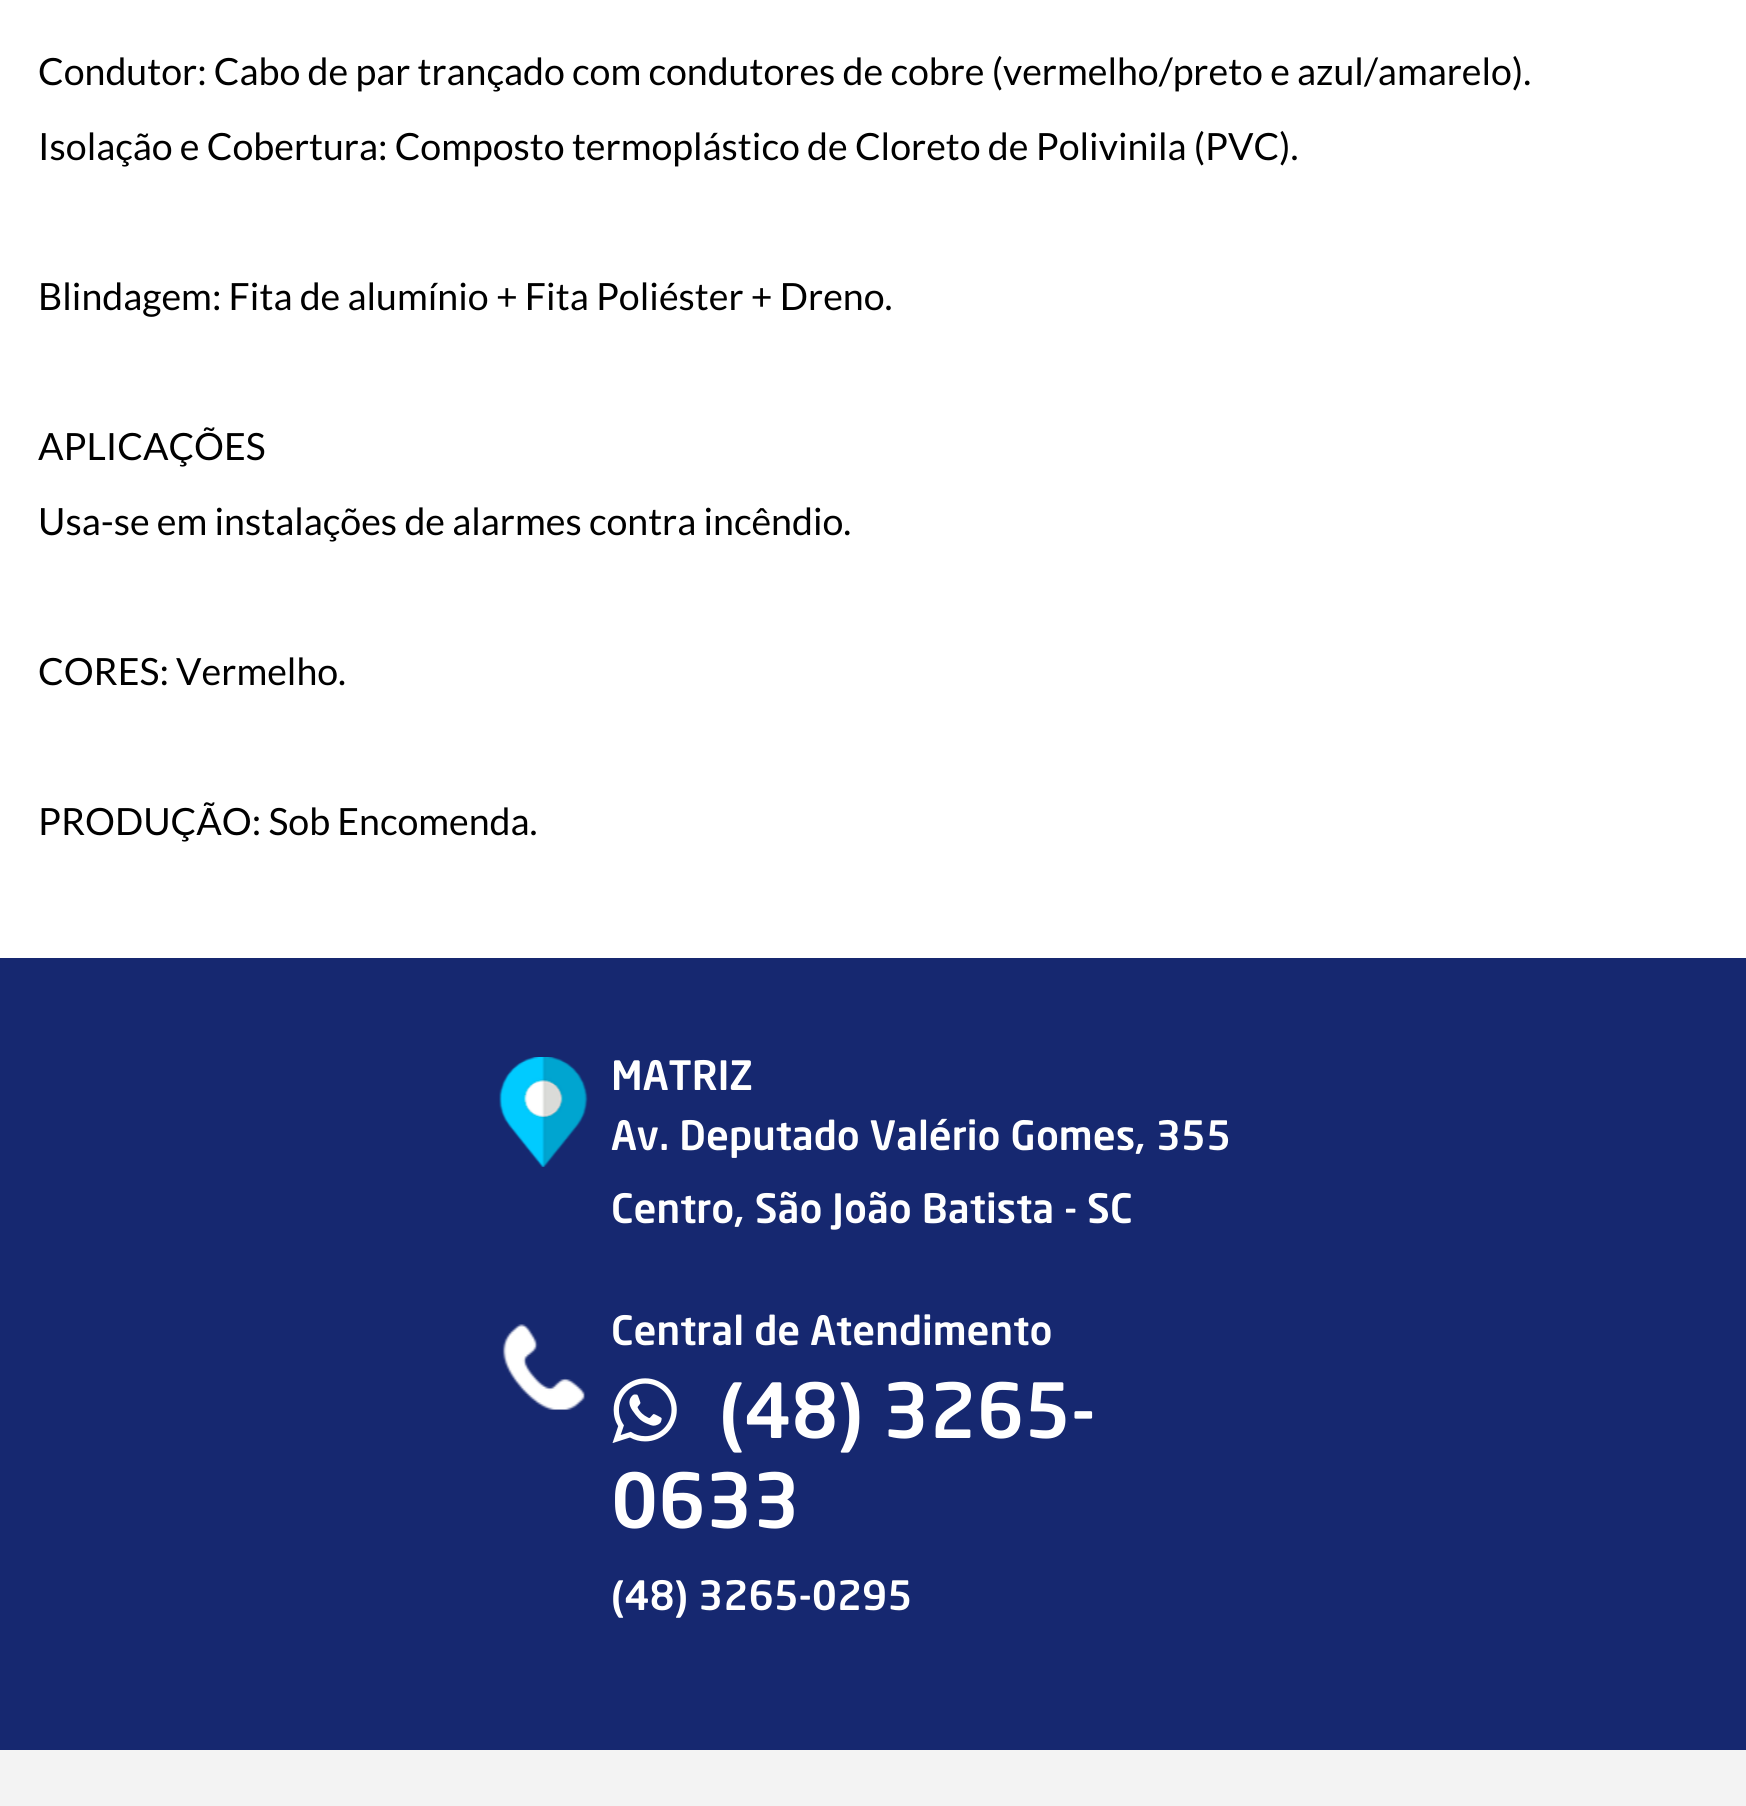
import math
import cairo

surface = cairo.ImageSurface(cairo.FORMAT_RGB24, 1746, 1806)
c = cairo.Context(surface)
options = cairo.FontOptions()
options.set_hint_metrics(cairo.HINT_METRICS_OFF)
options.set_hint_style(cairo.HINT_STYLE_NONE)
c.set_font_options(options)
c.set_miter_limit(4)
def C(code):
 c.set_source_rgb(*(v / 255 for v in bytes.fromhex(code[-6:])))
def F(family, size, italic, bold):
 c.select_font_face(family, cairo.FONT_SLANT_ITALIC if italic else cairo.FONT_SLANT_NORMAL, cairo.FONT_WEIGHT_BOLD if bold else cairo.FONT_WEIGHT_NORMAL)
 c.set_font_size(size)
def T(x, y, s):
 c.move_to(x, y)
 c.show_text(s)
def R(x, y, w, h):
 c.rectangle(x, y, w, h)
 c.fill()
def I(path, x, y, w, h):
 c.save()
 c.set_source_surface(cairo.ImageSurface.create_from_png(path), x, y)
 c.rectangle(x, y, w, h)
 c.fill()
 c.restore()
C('ffffff')
c.paint()
F('Lato',37.5,0,0)
C('000000')
T(38,85,'Condutor: Cabo de par trançado com condutores de cobre (vermelho/preto e azul/amarelo).')
T(38,160,'Isolação e Cobertura: Composto termoplástico de Cloreto de Polivinila (PVC).')
T(38,310,'Blindagem: Fita de alumínio + Fita Poliéster + Dreno.')
T(38,460,'APLICAÇÕES')
T(38,535,'Usa-se em instalações de alarmes contra incêndio.')
T(38,685,'CORES: Vermelho.')
T(38,835,'PRODUÇÃO: Sob Encomenda.')
C('162870')
R(0,958,1746,792)
I('1.png',499,1057,89,110)
F('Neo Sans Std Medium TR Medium',40,0,0)
C('ffffff')
T(611,1090,'MATRIZ')
T(611,1150,'Av. Deputado Valério Gomes, 355')
T(611,1223,'Centro, São João Batista - SC')
I('2.png',502,1324,83,86)
T(611,1345,'Central de Atendimento')
I('3.png',612,1378,65,65)
F('Neo Sans Std Medium TR Medium',75,0,0)
T(719,1438,'(48) 3265-')
T(611,1528,'0633')
F('Neo Sans Std Medium TR Medium',40,0,0)
T(611,1610,'(48) 3265-0295')
C('f3f3f3')
R(0,1750,1746,56)
surface.write_to_png('o.png')
